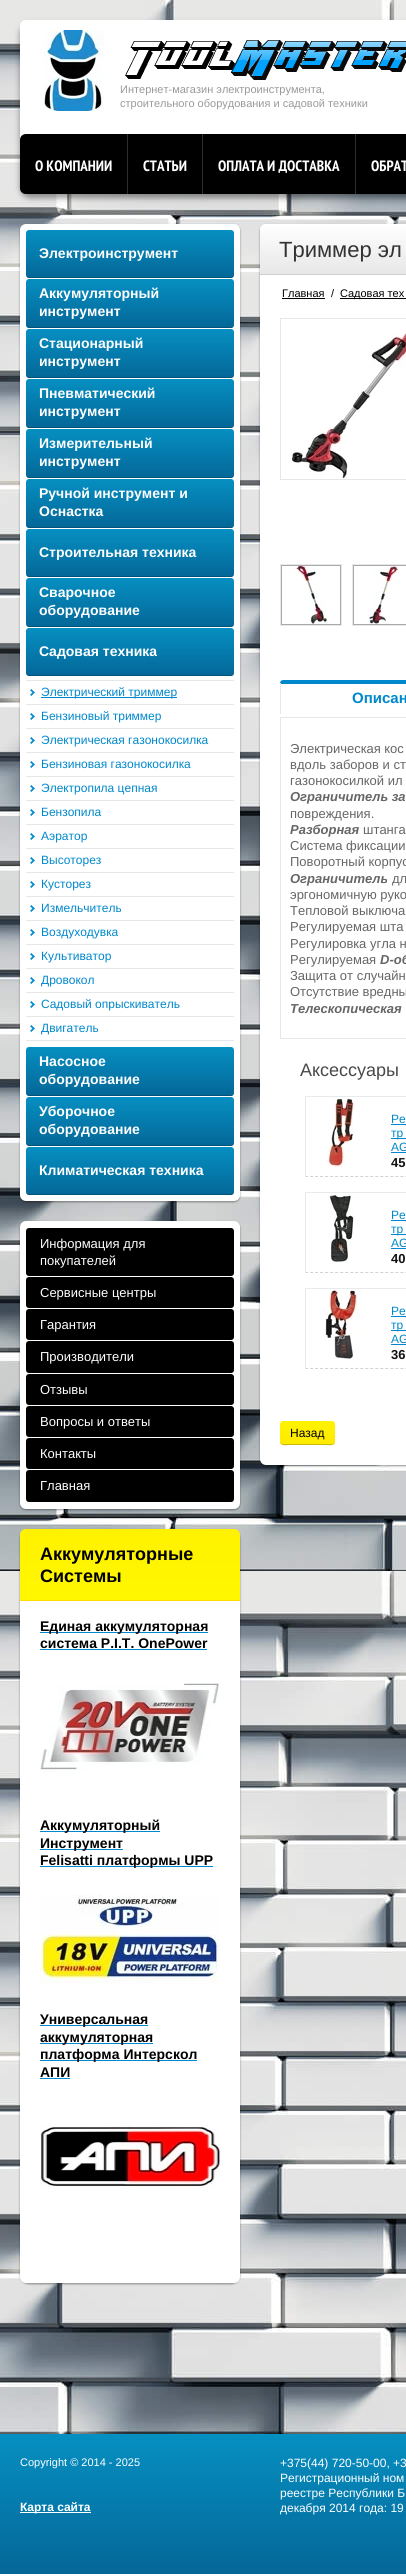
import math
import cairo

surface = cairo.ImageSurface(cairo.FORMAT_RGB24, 406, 2574)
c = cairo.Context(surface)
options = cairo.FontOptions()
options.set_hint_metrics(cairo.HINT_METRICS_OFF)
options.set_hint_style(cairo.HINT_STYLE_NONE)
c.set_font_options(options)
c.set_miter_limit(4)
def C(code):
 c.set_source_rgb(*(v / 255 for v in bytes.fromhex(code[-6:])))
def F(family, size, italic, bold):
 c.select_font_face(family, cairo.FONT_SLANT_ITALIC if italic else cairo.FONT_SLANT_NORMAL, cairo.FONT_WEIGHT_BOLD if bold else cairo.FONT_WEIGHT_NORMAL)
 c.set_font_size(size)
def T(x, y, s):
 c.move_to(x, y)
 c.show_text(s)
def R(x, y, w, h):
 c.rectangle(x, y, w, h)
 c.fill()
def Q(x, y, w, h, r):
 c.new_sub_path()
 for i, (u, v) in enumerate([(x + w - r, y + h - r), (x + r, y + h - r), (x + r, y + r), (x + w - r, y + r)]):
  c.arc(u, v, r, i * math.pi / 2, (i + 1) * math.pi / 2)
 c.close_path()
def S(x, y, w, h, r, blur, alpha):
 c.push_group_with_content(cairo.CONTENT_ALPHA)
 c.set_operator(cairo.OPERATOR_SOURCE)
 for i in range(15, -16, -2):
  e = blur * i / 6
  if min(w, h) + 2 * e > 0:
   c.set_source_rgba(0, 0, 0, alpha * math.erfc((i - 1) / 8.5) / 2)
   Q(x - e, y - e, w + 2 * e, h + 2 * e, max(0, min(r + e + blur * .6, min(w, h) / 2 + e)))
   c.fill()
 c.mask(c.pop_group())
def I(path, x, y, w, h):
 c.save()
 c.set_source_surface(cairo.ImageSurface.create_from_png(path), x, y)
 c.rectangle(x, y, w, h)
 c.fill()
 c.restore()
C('ffffff')
c.paint()
I('1.png',0,0,406,2434)
C('000000')
S(20,24,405,174,10,3,.4)
C('ffffff')
c.new_path()
c.move_to(26,20)
c.line_to(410,20)
c.curve_to(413.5,20,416,22.5,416,26)
c.line_to(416,184)
c.curve_to(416,189.5,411.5,194,406,194)
c.line_to(30,194)
c.curve_to(24.5,194,20,189.5,20,184)
c.line_to(20,26)
c.curve_to(20,22.5,22.5,20,26,20)
c.close_path()
c.fill()
I('2.png',44,30,60,81)
I('3.png',125,40,281,40)
F('Liberation Sans',11,0,0)
C('999999')
T(120,93,'Интернет-магазин электроинструмента,')
T(120,107,'строительного оборудования и садовой техники')
C('000000')
c.new_path()
c.move_to(26,134)
c.line_to(406,134)
c.curve_to(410.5,134,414,137.5,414,142)
c.line_to(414,186)
c.curve_to(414,190.5,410.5,194,406,194)
c.line_to(26,194)
c.curve_to(22.5,194,20,191.5,20,188)
c.line_to(20,140)
c.curve_to(20,136.5,22.5,134,26,134)
c.close_path()
c.fill()
c.set_source_rgba(0,0,0,0.2)
c.new_path()
c.move_to(20,187)
c.line_to(20,188)
c.curve_to(20,191,23,194,26,194)
c.line_to(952,194)
c.curve_to(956,194,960,190,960,186)
c.line_to(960,185)
c.curve_to(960,189,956,193,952,193)
c.line_to(26,193)
c.curve_to(23,193,20,190,20,187)
c.close_path()
c.fill()
C('2e2e2e')
R(127,134,1,60)
F('PT Sans Narrow',15,0,1)
C('ffffff')
T(35,171,'О КОМПАНИИ')
C('2e2e2e')
R(202,134,1,60)
C('ffffff')
T(143,171,'СТАТЬИ')
C('2e2e2e')
R(355,134,1,60)
C('ffffff')
T(218,171,'ОПЛАТА И ДОСТАВКА')
T(371,171,'ОБРАТ')
C('000000')
S(20,225,220,977,6,1,.4)
C('ffffff')
Q(20,224,220,977,6)
c.fill()
gradient = cairo.LinearGradient(130,230,130,278)
gradient.add_color_stop_rgba(0,0.024,0.561,0.757,1)
gradient.add_color_stop_rgba(1,0.016,0.404,0.596,1)
c.set_source(gradient)
Q(26,230,208,48,3)
c.fill()
c.set_source_rgba(0,0,0,0.2)
c.new_path()
c.move_to(26,274)
c.curve_to(26,276,27,278,29,278)
c.line_to(232,278)
c.curve_to(234,277,234,276,234,274)
c.curve_to(234,276,233,277,231,277)
c.line_to(29,277)
c.curve_to(27,277,26,276,26,274)
c.close_path()
c.fill()
F('Liberation Sans',14,0,1)
C('ffffff')
T(39,258,'Электроинструмент')
gradient = cairo.LinearGradient(130,279,130,328)
gradient.add_color_stop_rgba(0,0.024,0.561,0.757,1)
gradient.add_color_stop_rgba(1,0.016,0.404,0.596,1)
c.set_source(gradient)
Q(26,279,208,49,3)
c.fill()
c.set_source_rgba(0,0,0,0.2)
c.new_path()
c.move_to(26,324)
c.curve_to(26,326,27,328,29,328)
c.line_to(232,328)
c.curve_to(234,327,234,326,234,324)
c.curve_to(234,326,233,327,231,327)
c.line_to(29,327)
c.curve_to(27,327,26,326,26,324)
c.close_path()
c.fill()
C('ffffff')
T(39,298,'Аккумуляторный')
T(39,316,'инструмент')
gradient = cairo.LinearGradient(130,329,130,378)
gradient.add_color_stop_rgba(0,0.024,0.561,0.757,1)
gradient.add_color_stop_rgba(1,0.016,0.404,0.596,1)
c.set_source(gradient)
Q(26,329,208,49,3)
c.fill()
c.set_source_rgba(0,0,0,0.2)
c.new_path()
c.move_to(26,374)
c.curve_to(26,376,27,378,29,378)
c.line_to(232,378)
c.curve_to(234,377,234,376,234,374)
c.curve_to(234,376,233,377,231,377)
c.line_to(29,377)
c.curve_to(27,377,26,376,26,374)
c.close_path()
c.fill()
C('ffffff')
T(39,348,'Стационарный')
T(39,366,'инструмент')
gradient = cairo.LinearGradient(130,379,130,428)
gradient.add_color_stop_rgba(0,0.024,0.561,0.757,1)
gradient.add_color_stop_rgba(1,0.016,0.404,0.596,1)
c.set_source(gradient)
Q(26,379,208,49,3)
c.fill()
c.set_source_rgba(0,0,0,0.2)
c.new_path()
c.move_to(26,424)
c.curve_to(26,426,27,428,29,428)
c.line_to(232,428)
c.curve_to(234,427,234,426,234,424)
c.curve_to(234,426,233,427,231,427)
c.line_to(29,427)
c.curve_to(27,427,26,426,26,424)
c.close_path()
c.fill()
C('ffffff')
T(39,398,'Пневматический')
T(39,416,'инструмент')
gradient = cairo.LinearGradient(130,429,130,478)
gradient.add_color_stop_rgba(0,0.024,0.561,0.757,1)
gradient.add_color_stop_rgba(1,0.016,0.404,0.596,1)
c.set_source(gradient)
Q(26,429,208,49,3)
c.fill()
c.set_source_rgba(0,0,0,0.2)
c.new_path()
c.move_to(26,474)
c.curve_to(26,476,27,478,29,478)
c.line_to(232,478)
c.curve_to(234,477,234,476,234,474)
c.curve_to(234,476,233,477,231,477)
c.line_to(29,477)
c.curve_to(27,477,26,476,26,474)
c.close_path()
c.fill()
C('ffffff')
T(39,448,'Измерительный')
T(39,466,'инструмент')
gradient = cairo.LinearGradient(130,479,130,528)
gradient.add_color_stop_rgba(0,0.024,0.561,0.757,1)
gradient.add_color_stop_rgba(1,0.016,0.404,0.596,1)
c.set_source(gradient)
Q(26,479,208,49,3)
c.fill()
c.set_source_rgba(0,0,0,0.2)
c.new_path()
c.move_to(26,524)
c.curve_to(26,526,27,528,29,528)
c.line_to(232,528)
c.curve_to(234,527,234,526,234,524)
c.curve_to(234,526,233,527,231,527)
c.line_to(29,527)
c.curve_to(27,527,26,526,26,524)
c.close_path()
c.fill()
C('ffffff')
T(39,498,'Ручной инструмент и')
T(39,516,'Оснастка')
gradient = cairo.LinearGradient(130,529,130,577)
gradient.add_color_stop_rgba(0,0.024,0.561,0.757,1)
gradient.add_color_stop_rgba(1,0.016,0.404,0.596,1)
c.set_source(gradient)
Q(26,529,208,48,3)
c.fill()
c.set_source_rgba(0,0,0,0.2)
c.new_path()
c.move_to(26,573)
c.curve_to(26,575,27,577,29,577)
c.line_to(232,577)
c.curve_to(234,576,234,575,234,573)
c.curve_to(234,575,233,576,231,576)
c.line_to(29,576)
c.curve_to(27,576,26,575,26,573)
c.close_path()
c.fill()
C('ffffff')
T(39,557,'Строительная техника')
gradient = cairo.LinearGradient(130,578,130,627)
gradient.add_color_stop_rgba(0,0.024,0.561,0.757,1)
gradient.add_color_stop_rgba(1,0.016,0.404,0.596,1)
c.set_source(gradient)
Q(26,578,208,49,3)
c.fill()
c.set_source_rgba(0,0,0,0.2)
c.new_path()
c.move_to(26,623)
c.curve_to(26,625,27,627,29,627)
c.line_to(232,627)
c.curve_to(234,626,234,625,234,623)
c.curve_to(234,625,233,626,231,626)
c.line_to(29,626)
c.curve_to(27,626,26,625,26,623)
c.close_path()
c.fill()
C('ffffff')
T(39,597,'Сварочное')
T(39,615,'оборудование')
gradient = cairo.LinearGradient(130,628,130,676)
gradient.add_color_stop_rgba(0,0.024,0.561,0.757,1)
gradient.add_color_stop_rgba(1,0.016,0.404,0.596,1)
c.set_source(gradient)
Q(26,628,208,48,3)
c.fill()
c.set_source_rgba(0,0,0,0.2)
c.new_path()
c.move_to(26,672)
c.curve_to(26,674,27,676,29,676)
c.line_to(232,676)
c.curve_to(234,675,234,674,234,672)
c.curve_to(234,674,233,675,231,675)
c.line_to(29,675)
c.curve_to(27,675,26,674,26,672)
c.close_path()
c.fill()
C('ffffff')
T(39,656,'Садовая техника')
C('e7e7e7')
R(26,1040,208,1)
R(26,680,208,1)
I('4.png',30,689,5,7)
C('0088cc')
R(41,697,136,1)
F('Liberation Sans',12,0,0)
T(41,696,'Электрический триммер')
C('e7e7e7')
R(26,704,208,1)
I('4.png',30,713,5,7)
C('0088cc')
T(41,720,'Бензиновый триммер')
C('e7e7e7')
R(26,728,208,1)
I('4.png',30,737,5,7)
C('0088cc')
T(41,744,'Электрическая газонокосилка')
C('e7e7e7')
R(26,752,208,1)
I('4.png',30,761,5,7)
C('0088cc')
T(41,768,'Бензиновая газонокосилка')
C('e7e7e7')
R(26,776,208,1)
I('4.png',30,785,5,7)
C('0088cc')
T(41,792,'Электропила цепная')
C('e7e7e7')
R(26,800,208,1)
I('4.png',30,809,5,7)
C('0088cc')
T(41,816,'Бензопила')
C('e7e7e7')
R(26,824,208,1)
I('4.png',30,833,5,7)
C('0088cc')
T(41,840,'Аэратор')
C('e7e7e7')
R(26,848,208,1)
I('4.png',30,857,5,7)
C('0088cc')
T(41,864,'Высоторез')
C('e7e7e7')
R(26,872,208,1)
I('4.png',30,881,5,7)
C('0088cc')
T(41,888,'Кусторез')
C('e7e7e7')
R(26,896,208,1)
I('4.png',30,905,5,7)
C('0088cc')
T(41,912,'Измельчитель')
C('e7e7e7')
R(26,920,208,1)
I('4.png',30,929,5,7)
C('0088cc')
T(41,936,'Воздуходувка')
C('e7e7e7')
R(26,944,208,1)
I('4.png',30,953,5,7)
C('0088cc')
T(41,960,'Культиватор')
C('e7e7e7')
R(26,968,208,1)
I('4.png',30,977,5,7)
C('0088cc')
T(41,984,'Дровокол')
C('e7e7e7')
R(26,992,208,1)
I('4.png',30,1001,5,7)
C('0088cc')
T(41,1008,'Садовый опрыскиватель')
C('e7e7e7')
R(26,1016,208,1)
I('4.png',30,1025,5,7)
C('0088cc')
T(41,1032,'Двигатель')
gradient = cairo.LinearGradient(130,1047,130,1096)
gradient.add_color_stop_rgba(0,0.024,0.561,0.757,1)
gradient.add_color_stop_rgba(1,0.016,0.404,0.596,1)
c.set_source(gradient)
Q(26,1047,208,49,3)
c.fill()
c.set_source_rgba(0,0,0,0.2)
c.new_path()
c.move_to(26,1092)
c.curve_to(26,1094,27,1096,29,1096)
c.line_to(232,1096)
c.curve_to(234,1095,234,1094,234,1092)
c.curve_to(234,1094,233,1095,231,1095)
c.line_to(29,1095)
c.curve_to(27,1095,26,1094,26,1092)
c.close_path()
c.fill()
F('Liberation Sans',14,0,1)
C('ffffff')
T(39,1066,'Насосное')
T(39,1084,'оборудование')
gradient = cairo.LinearGradient(130,1097,130,1146)
gradient.add_color_stop_rgba(0,0.024,0.561,0.757,1)
gradient.add_color_stop_rgba(1,0.016,0.404,0.596,1)
c.set_source(gradient)
Q(26,1097,208,49,3)
c.fill()
c.set_source_rgba(0,0,0,0.2)
c.new_path()
c.move_to(26,1142)
c.curve_to(26,1144,27,1146,29,1146)
c.line_to(232,1146)
c.curve_to(234,1145,234,1144,234,1142)
c.curve_to(234,1144,233,1145,231,1145)
c.line_to(29,1145)
c.curve_to(27,1145,26,1144,26,1142)
c.close_path()
c.fill()
C('ffffff')
T(39,1116,'Уборочное')
T(39,1134,'оборудование')
gradient = cairo.LinearGradient(130,1147,130,1195)
gradient.add_color_stop_rgba(0,0.024,0.561,0.757,1)
gradient.add_color_stop_rgba(1,0.016,0.404,0.596,1)
c.set_source(gradient)
Q(26,1147,208,48,3)
c.fill()
c.set_source_rgba(0,0,0,0.2)
c.new_path()
c.move_to(26,1191)
c.curve_to(26,1193,27,1195,29,1195)
c.line_to(232,1195)
c.curve_to(234,1194,234,1193,234,1191)
c.curve_to(234,1193,233,1194,231,1194)
c.line_to(29,1194)
c.curve_to(27,1194,26,1193,26,1191)
c.close_path()
c.fill()
C('ffffff')
T(39,1175,'Климатическая техника')
C('000000')
S(20,1222,220,288,6,1,.4)
C('ffffff')
Q(20,1221,220,288,6)
c.fill()
C('000000')
Q(26,1228,208,48,3)
c.fill()
c.set_source_rgba(0,0,0,0.2)
c.new_path()
c.move_to(26,1272)
c.curve_to(26,1274,27,1276,29,1276)
c.line_to(232,1276)
c.curve_to(234,1275,234,1274,234,1272)
c.curve_to(234,1274,233,1275,231,1275)
c.line_to(29,1275)
c.curve_to(27,1275,26,1274,26,1272)
c.close_path()
c.fill()
F('Liberation Sans',13,0,0)
C('ffffff')
T(40,1248,'Информация для')
T(40,1265,'покупателей')
C('000000')
Q(26,1277,208,31,3)
c.fill()
c.set_source_rgba(0,0,0,0.2)
c.new_path()
c.move_to(26,1304)
c.curve_to(26,1306,27,1308,29,1308)
c.line_to(232,1308)
c.curve_to(234,1307,234,1306,234,1304)
c.curve_to(234,1306,233,1307,231,1307)
c.line_to(29,1307)
c.curve_to(27,1307,26,1306,26,1304)
c.close_path()
c.fill()
C('ffffff')
T(40,1297,'Сервисные центры')
C('000000')
Q(26,1309,208,31,3)
c.fill()
c.set_source_rgba(0,0,0,0.2)
c.new_path()
c.move_to(26,1336)
c.curve_to(26,1338,27,1340,29,1340)
c.line_to(232,1340)
c.curve_to(234,1339,234,1338,234,1336)
c.curve_to(234,1338,233,1339,231,1339)
c.line_to(29,1339)
c.curve_to(27,1339,26,1338,26,1336)
c.close_path()
c.fill()
C('ffffff')
T(40,1329,'Гарантия')
C('000000')
Q(26,1341,208,32,3)
c.fill()
c.set_source_rgba(0,0,0,0.2)
c.new_path()
c.move_to(26,1369)
c.curve_to(26,1371,27,1373,29,1373)
c.line_to(232,1373)
c.curve_to(234,1372,234,1371,234,1369)
c.curve_to(234,1371,233,1372,231,1372)
c.line_to(29,1372)
c.curve_to(27,1372,26,1371,26,1369)
c.close_path()
c.fill()
C('ffffff')
T(40,1361,'Производители')
C('000000')
Q(26,1374,208,31,3)
c.fill()
c.set_source_rgba(0,0,0,0.2)
c.new_path()
c.move_to(26,1401)
c.curve_to(26,1403,27,1405,29,1405)
c.line_to(232,1405)
c.curve_to(234,1404,234,1403,234,1401)
c.curve_to(234,1403,233,1404,231,1404)
c.line_to(29,1404)
c.curve_to(27,1404,26,1403,26,1401)
c.close_path()
c.fill()
C('ffffff')
T(40,1394,'Отзывы')
C('000000')
Q(26,1406,208,31,3)
c.fill()
c.set_source_rgba(0,0,0,0.2)
c.new_path()
c.move_to(26,1433)
c.curve_to(26,1435,27,1437,29,1437)
c.line_to(232,1437)
c.curve_to(234,1436,234,1435,234,1433)
c.curve_to(234,1435,233,1436,231,1436)
c.line_to(29,1436)
c.curve_to(27,1436,26,1435,26,1433)
c.close_path()
c.fill()
C('ffffff')
T(40,1426,'Вопросы и ответы')
C('000000')
Q(26,1438,208,31,3)
c.fill()
c.set_source_rgba(0,0,0,0.2)
c.new_path()
c.move_to(26,1465)
c.curve_to(26,1467,27,1469,29,1469)
c.line_to(232,1469)
c.curve_to(234,1468,234,1467,234,1465)
c.curve_to(234,1467,233,1468,231,1468)
c.line_to(29,1468)
c.curve_to(27,1468,26,1467,26,1465)
c.close_path()
c.fill()
C('ffffff')
T(40,1458,'Контакты')
C('000000')
Q(26,1470,208,32,3)
c.fill()
c.set_source_rgba(0,0,0,0.2)
c.new_path()
c.move_to(26,1498)
c.curve_to(26,1500,27,1502,29,1502)
c.line_to(232,1502)
c.curve_to(234,1501,234,1500,234,1498)
c.curve_to(234,1500,233,1501,231,1501)
c.line_to(29,1501)
c.curve_to(27,1501,26,1500,26,1498)
c.close_path()
c.fill()
C('ffffff')
T(40,1490,'Главная')
C('000000')
S(20,1530,220,754,8,1,.4)
C('ffffff')
c.new_path()
c.move_to(28,1529)
c.line_to(232,1529)
c.curve_to(236.5,1529,240,1532.5,240,1537)
c.line_to(240,2277)
c.curve_to(240,2280.5,237.5,2283,234,2283)
c.line_to(26,2283)
c.curve_to(22.5,2283,20,2280.5,20,2277)
c.line_to(20,1537)
c.curve_to(20,1532.5,23.5,1529,28,1529)
c.close_path()
c.fill()
gradient = cairo.LinearGradient(130,1529,130,1600)
gradient.add_color_stop_rgba(0,1,0.949,0,1)
gradient.add_color_stop_rgba(1,1,0.969,0,1)
c.set_source(gradient)
c.new_path()
c.move_to(26,1529)
c.line_to(234,1529)
c.curve_to(237.5,1529,240,1531.5,240,1535)
c.line_to(240,1600)
c.line_to(20,1600)
c.line_to(20,1535)
c.curve_to(20,1531.5,22.5,1529,26,1529)
c.close_path()
c.fill()
C('ffdd00')
R(20,1600,220,1)
F('Liberation Sans',18,0,1)
C('000000')
T(40,1560,'Аккумуляторные')
T(40,1582,'Системы')
C('0088cc')
R(40,1632,168,1)
F('Liberation Sans',14,0,1)
C('000000')
T(40,1631,'Единая аккумуляторная')
T(40,1648,'система P.I.T. OnePower')
C('0088cc')
R(40,1649,167,1)
I('5.png',40,1683,179,90)
R(40,1831,120,1)
C('000000')
T(40,1830,'Аккумуляторный')
C('0088cc')
R(40,1849,83,1)
C('000000')
T(40,1848,'Инструмент')
C('0088cc')
R(40,1866,173,1)
C('000000')
T(40,1865,'Felisatti платформы UPP')
I('6.png',40,1895,180,89)
C('0088cc')
R(40,2025,108,1)
C('000000')
T(40,2024,'Универсальная')
C('0088cc')
R(40,2043,113,1)
C('000000')
T(40,2042,'аккумуляторная')
C('0088cc')
R(40,2060,157,1)
C('000000')
T(40,2059,'платформа Интерскол')
T(40,2077,'АПИ')
C('0088cc')
R(40,2078,30,1)
I('7.png',40,2125,180,64)
C('000000')
S(260,225,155,1241,6,1,.4)
C('ffffff')
Q(260,224,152,1241,6)
c.fill()
gradient = cairo.LinearGradient(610,224,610,274)
gradient.add_color_stop_rgba(0,1,1,1,1)
gradient.add_color_stop_rgba(1,0.906,0.906,0.906,1)
c.set_source(gradient)
c.new_path()
c.move_to(266,224)
c.line_to(406,224)
c.curve_to(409.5,224,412,226.5,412,230)
c.line_to(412,274)
c.line_to(260,274)
c.line_to(260,230)
c.curve_to(260,226.5,262.5,224,266,224)
c.close_path()
c.fill()
C('cfcfcf')
R(260,274,146,1)
F('Liberation Sans',22,0,0)
C('333333')
T(279,257,'Триммер эл')
F('Liberation Sans',11,0,0)
C('000000')
T(282,297,'Главная')
R(282,298,43,1)
T(331,297,'/')
R(340,298,66,1)
T(340,297,'Садовая тех')
c.rectangle(280.5,318.5,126,161)
C('e7e7e7')
c.set_line_width(1)
c.stroke()
I('8.png',292,330,114,149)
c.rectangle(280.5,564.5,61,61)
c.stroke()
I('9.png',294,566,33,58)
c.rectangle(281.5,565.5,59,59)
C('aaaaaa')
c.stroke()
c.rectangle(352.5,564.5,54,61)
C('e7e7e7')
c.stroke()
I('10.png',366,566,32,58)
c.rectangle(353.5,565.5,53,59)
C('aaaaaa')
c.stroke()
C('0088cc')
c.new_path()
c.move_to(283,680)
c.line_to(406,680)
c.curve_to(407.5,680,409,681.5,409,683)
c.line_to(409,714)
c.line_to(280,714)
c.line_to(280,683)
c.curve_to(280,681.5,281.5,680,283,680)
c.close_path()
c.fill()
C('ffffff')
R(281,684,125,30)
C('e7e7e7')
R(280,683,1,31)
F('Liberation Sans',15,0,1)
C('0088cc')
T(352,703,'Описан')
c.rectangle(280.5,717.5,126,321)
C('e7e7e7')
c.stroke()
F('Liberation Sans',13,0,0)
C('666666')
T(290,753,'Электрическая кос')
T(290,769,'вдоль заборов и ст')
T(290,785,'газонокосилкой ил')
F('Liberation Sans',13,1,1)
T(290,801,'Ограничитель за')
F('Liberation Sans',13,0,0)
T(290,818,'повреждения.')
F('Liberation Sans',13,1,1)
T(290,834,'Разборная')
F('Liberation Sans',13,0,0)
T(363,834,'штанга')
T(290,850,'Система фиксации')
T(290,866,'Поворотный корпус')
F('Liberation Sans',13,1,1)
T(290,883,'Ограничитель')
F('Liberation Sans',13,0,0)
T(392,883,'дл')
T(290,899,'эргономичную руко')
T(290,915,'Тепловой выключа')
T(290,931,'Регулируемая шта')
T(290,948,'Регулировка угла н')
T(290,964,'Регулируемая')
F('Liberation Sans',13,1,1)
T(380,964,'D-об')
F('Liberation Sans',13,0,0)
T(290,980,'Защита от случайн')
T(290,996,'Отсутствие вредны')
F('Liberation Sans',13,1,1)
T(290,1013,'Телескопическая')
F('Liberation Sans',18,0,0)
C('494949')
T(300,1076,'Аксессуары')
C('e7ebee')
R(305,1096,101,1)
c.new_path()
c.move_to(305,1176.5)
c.line_to(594,1176.5)
C('d2d2d2')
c.set_dash([3,2.02])
c.stroke()
C('e7ebee')
R(305,1096,1,81)
I('11.png',326,1097,29,70)
F('Liberation Sans',12,0,0)
C('0088cc')
T(391,1123,'Ре')
R(391,1124,15,1)
R(391,1138,15,1)
T(391,1137,'тр')
T(391,1151,'AG')
R(391,1152,15,1)
F('Liberation Sans',13,0,1)
C('111111')
T(391,1167,'45')
C('e7ebee')
R(305,1192,101,1)
c.new_path()
c.move_to(305,1272.5)
c.line_to(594,1272.5)
C('d2d2d2')
c.stroke()
C('e7ebee')
R(305,1192,1,81)
I('12.png',328,1193,26,69)
F('Liberation Sans',12,0,0)
C('0088cc')
T(391,1219,'Ре')
R(391,1220,15,1)
R(391,1234,15,1)
T(391,1233,'тр')
T(391,1247,'AG')
R(391,1248,15,1)
F('Liberation Sans',13,0,1)
C('111111')
T(391,1263,'40')
C('e7ebee')
R(305,1288,101,1)
c.new_path()
c.move_to(305,1368.5)
c.line_to(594,1368.5)
C('d2d2d2')
c.stroke()
C('e7ebee')
R(305,1288,1,81)
I('13.png',325,1289,37,70)
F('Liberation Sans',12,0,0)
C('0088cc')
T(391,1315,'Ре')
R(391,1316,15,1)
R(391,1330,15,1)
T(391,1329,'тр')
T(391,1343,'AG')
R(391,1344,15,1)
F('Liberation Sans',13,0,1)
C('111111')
T(391,1359,'36')
gradient = cairo.LinearGradient(308,1421,308,1445)
gradient.add_color_stop_rgba(0,1,0.949,0,1)
gradient.add_color_stop_rgba(1,1,0.918,0,1)
c.set_source(gradient)
Q(280,1421,55,24,3)
c.fill()
c.set_source_rgba(0,0,0,0.2)
c.new_path()
c.move_to(280,1441)
c.curve_to(280,1447,287,1445,291,1445)
c.line_to(324,1445)
c.curve_to(328,1445,335,1447,335,1441)
c.curve_to(335,1443,334,1444,332,1444)
c.line_to(283,1444)
c.curve_to(281,1444,280,1443,280,1441)
c.close_path()
c.fill()
F('Liberation Sans',12,0,0)
C('000000')
T(290,1437,'Назад')
gradient = cairo.LinearGradient(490,2434,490,2574)
gradient.add_color_stop_rgba(0,0.024,0.561,0.757,1)
gradient.add_color_stop_rgba(1,0.016,0.404,0.596,1)
c.set_source(gradient)
R(0,2434,406,140)
F('Liberation Sans',11,0,0)
C('ffffff')
T(20,2466,'Copyright © 2014 - 2025')
R(20,2512,71,1)
F('Liberation Sans',12,0,1)
T(20,2511,'Карта сайта')
F('Liberation Sans',12,0,0)
T(280,2467,'+375(44) 720-50-00, +3')
T(280,2482,'Регистрационный ном')
T(280,2497,'реестре Республики Б')
T(280,2512,'декабря 2014 года: 19')
surface.write_to_png('o.png')
